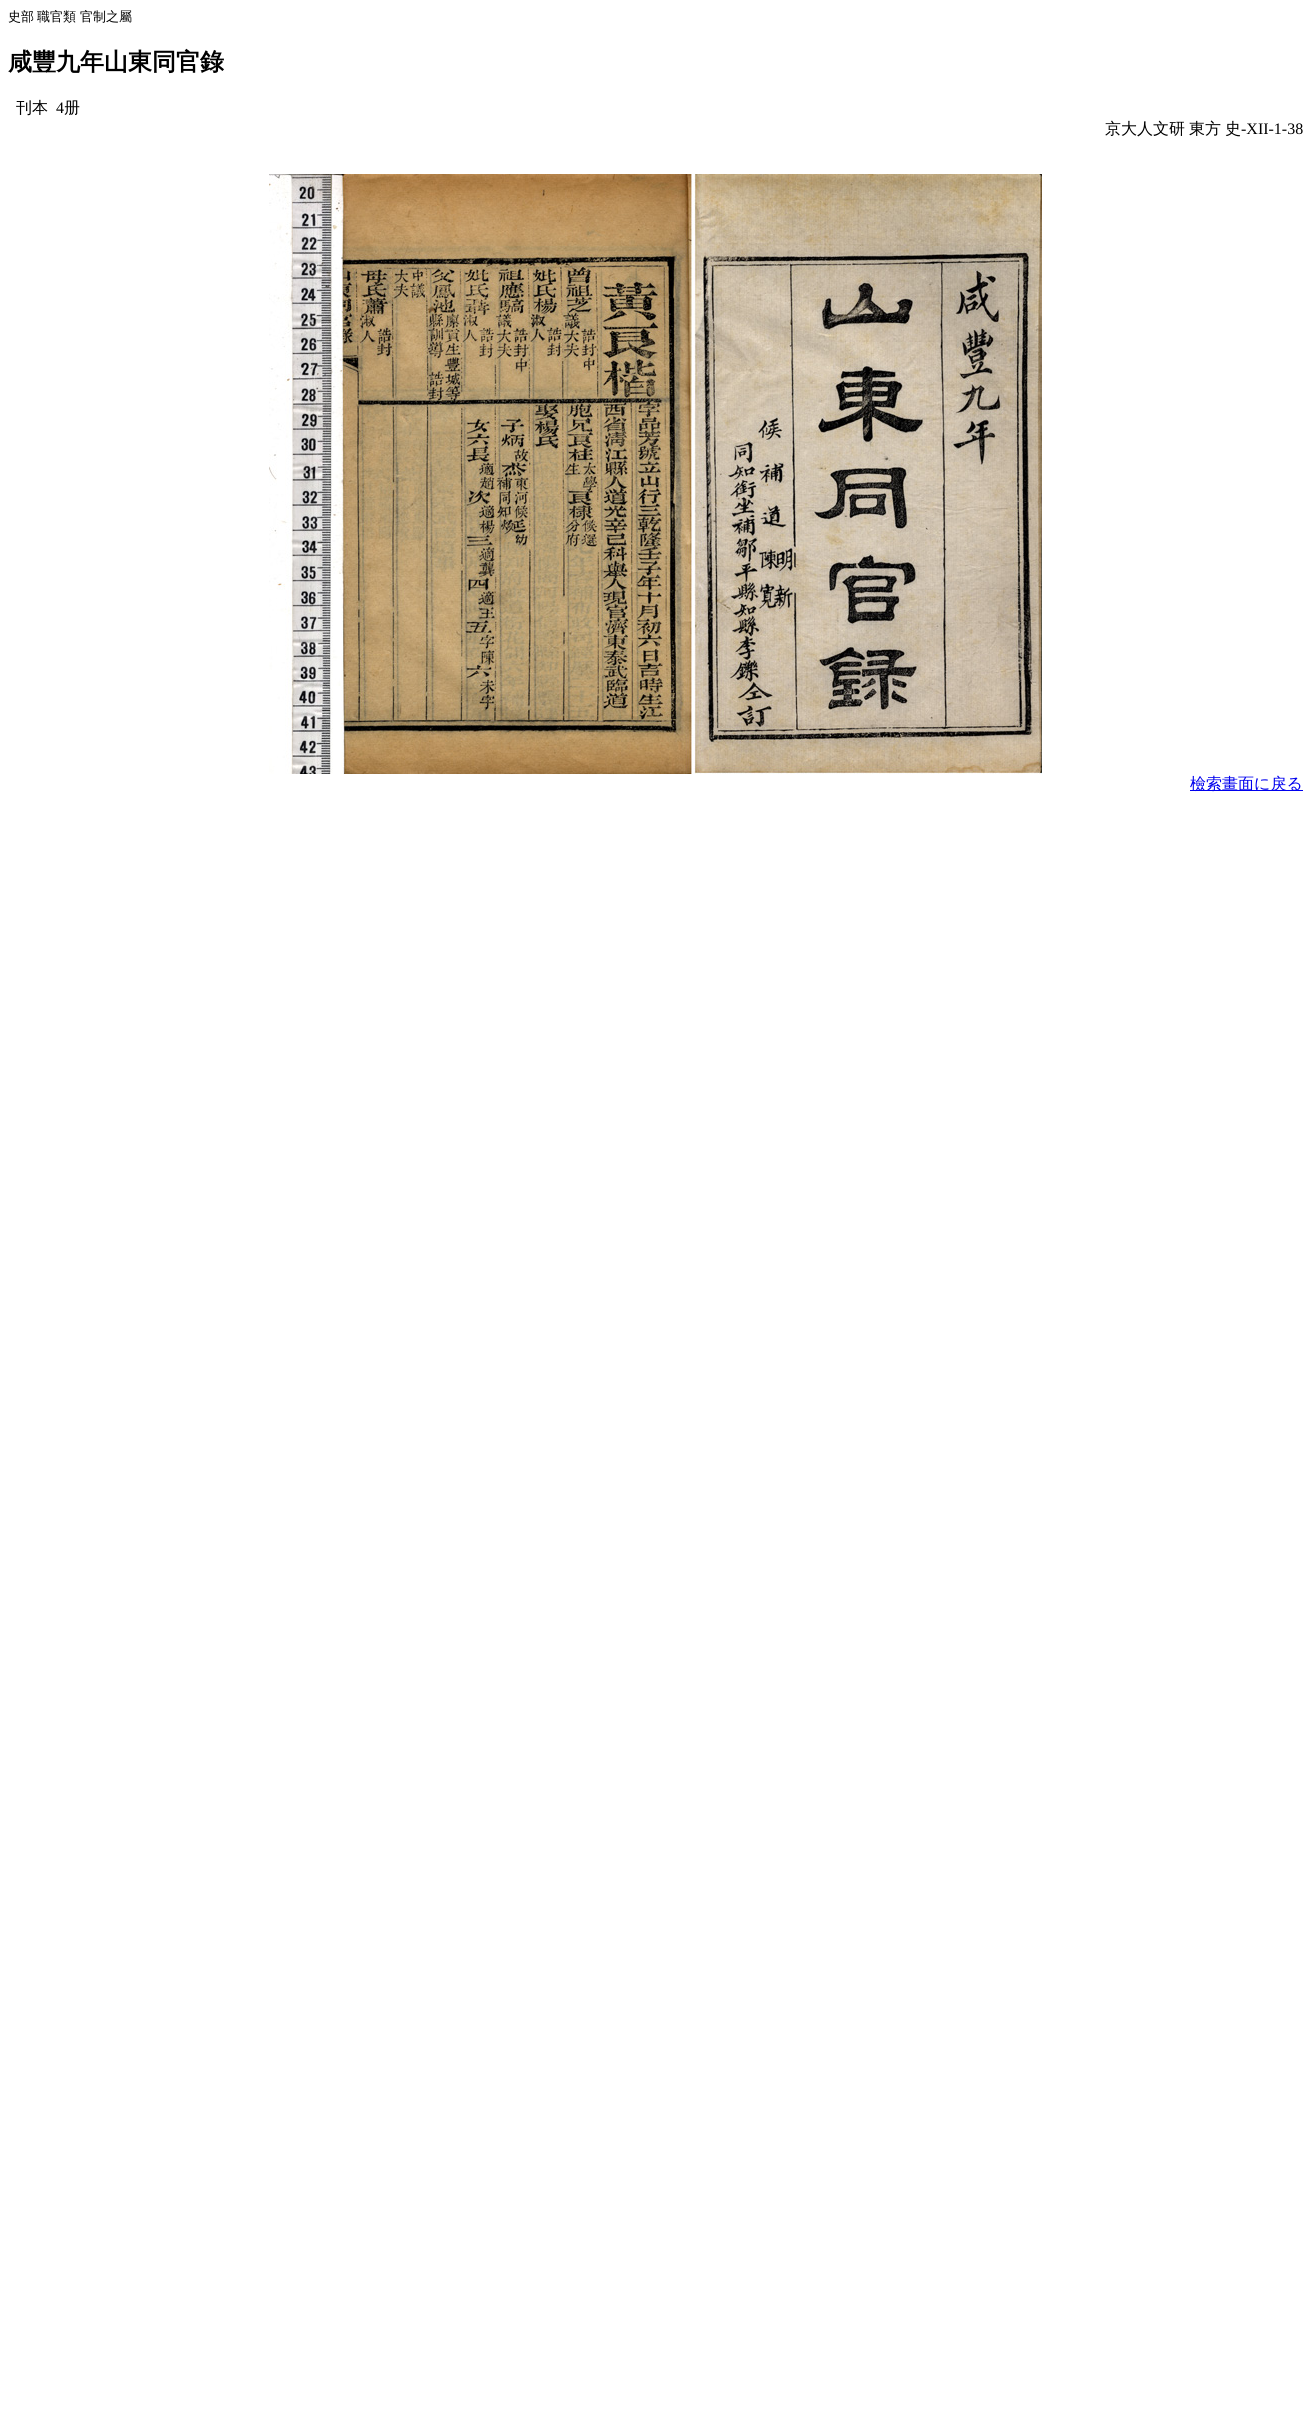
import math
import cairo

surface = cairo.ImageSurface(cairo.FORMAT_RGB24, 1311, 2415)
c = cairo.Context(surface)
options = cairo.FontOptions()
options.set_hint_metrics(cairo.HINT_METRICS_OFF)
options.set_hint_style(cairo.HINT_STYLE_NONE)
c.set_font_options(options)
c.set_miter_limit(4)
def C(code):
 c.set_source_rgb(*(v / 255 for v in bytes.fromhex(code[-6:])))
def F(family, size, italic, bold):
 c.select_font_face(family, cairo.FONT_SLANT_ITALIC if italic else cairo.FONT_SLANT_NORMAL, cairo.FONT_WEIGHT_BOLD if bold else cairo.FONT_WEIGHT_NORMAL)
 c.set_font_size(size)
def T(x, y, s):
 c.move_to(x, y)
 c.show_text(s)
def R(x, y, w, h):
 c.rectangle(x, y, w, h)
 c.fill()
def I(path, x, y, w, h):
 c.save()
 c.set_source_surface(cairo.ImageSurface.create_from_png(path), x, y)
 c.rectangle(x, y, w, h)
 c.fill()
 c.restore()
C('ffffff')
c.paint()
F('WenQuanYi Zen Hei Medium',13,0,0)
C('000000')
T(8,21,'史部')
T(37,21,'職官類')
T(80,21,'官制之屬')
F('WenQuanYi Zen Hei',24,0,1)
T(8,70,'咸豐九年山東同官錄')
F('WenQuanYi Zen Hei Medium',16,0,0)
T(16,113,'刊本')
F('Liberation Serif',16,0,0)
T(56,113,'4')
F('WenQuanYi Zen Hei Medium',16,0,0)
T(64,113,'册')
T(1105,134,'京大人文研')
T(1189,134,'東方')
T(1225,134,'史')
F('Liberation Serif',16,0,0)
T(1241,134,'-XII-1-38')
I('1.png',269,174,773,600)
C('0000ee')
R(1190,790,113,1)
F('WenQuanYi Zen Hei Medium',16,0,0)
T(1190,789,'檢索畫面に戾る')
surface.write_to_png('o.png')
